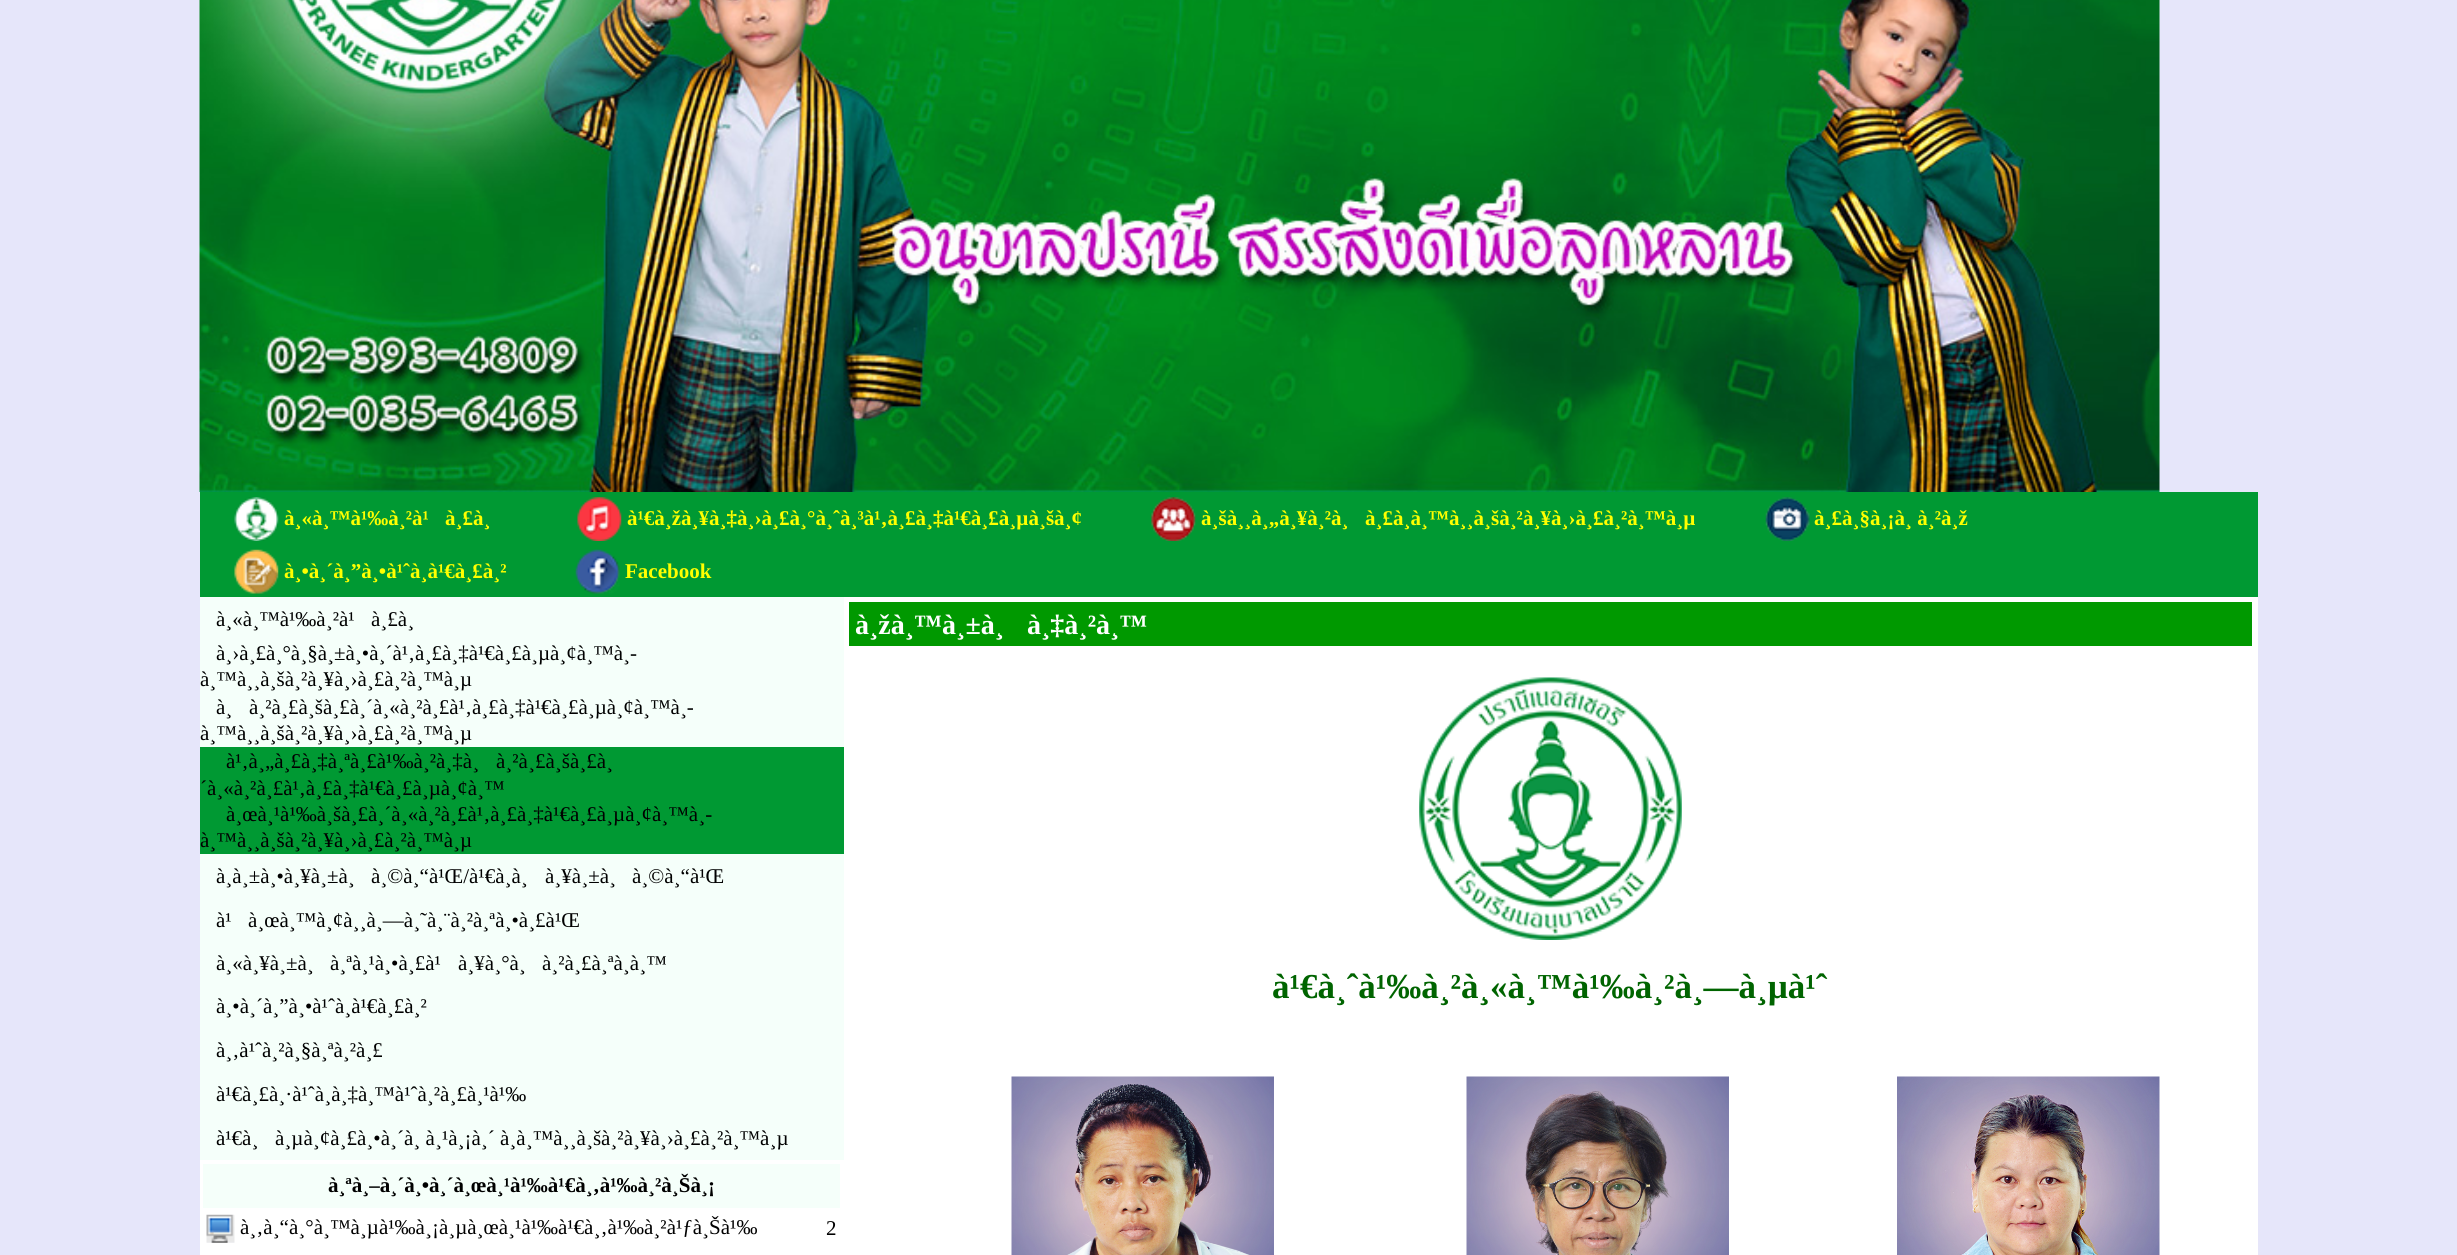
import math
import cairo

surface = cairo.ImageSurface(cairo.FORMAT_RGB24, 2457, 1255)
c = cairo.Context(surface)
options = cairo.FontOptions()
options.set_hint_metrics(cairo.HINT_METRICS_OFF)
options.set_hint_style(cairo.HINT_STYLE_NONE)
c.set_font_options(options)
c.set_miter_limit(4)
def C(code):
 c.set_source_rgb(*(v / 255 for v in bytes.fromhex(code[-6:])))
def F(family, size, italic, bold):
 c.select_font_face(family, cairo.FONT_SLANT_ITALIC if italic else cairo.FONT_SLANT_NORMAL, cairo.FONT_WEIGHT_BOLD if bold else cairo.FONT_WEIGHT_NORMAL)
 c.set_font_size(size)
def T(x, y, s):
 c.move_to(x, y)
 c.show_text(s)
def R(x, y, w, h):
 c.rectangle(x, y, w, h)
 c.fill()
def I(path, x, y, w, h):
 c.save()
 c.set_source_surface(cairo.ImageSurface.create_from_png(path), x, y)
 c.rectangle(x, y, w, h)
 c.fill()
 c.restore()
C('e6e6fa')
c.paint()
I('1.png',199,0,1961,492)
C('009933')
R(200,492,2058,105)
I('2.png',234,497,45,44)
F('Liberation Serif',21,0,1)
C('ffff00')
T(284,525,'à¸«à¸™à¹‰à¸²à¹')
T(445,525,'à¸£à¸')
I('3.png',577,497,45,44)
T(627,525,'à¹€à¸žà¸¥à¸‡à¸›à¸£à¸°à¸ˆà¸³à¹‚à¸£à¸‡à¹€à¸£à¸µà¸šà¸¢')
I('4.png',1151,497,45,44)
T(1201,525,'à¸šà¸¸à¸„à¸¥à¸²à¸')
T(1365,525,'à¸£à¸à¸™à¸¸à¸šà¸²à¸¥à¸›à¸£à¸²à¸™à¸µ')
I('5.png',1765,497,45,44)
T(1814,525,'à¸£à¸§à¸¡à¸ à¸²à¸ž')
I('6.png',234,549,45,45)
T(284,578,'à¸•à¸´à¸”à¸•à¹ˆà¸à¹€à¸£à¸²')
I('7.png',575,549,45,45)
T(625,578,'Facebook')
C('009933')
R(200,747,644,107)
C('f5fffa')
R(200,597,644,150)
F('Liberation Serif',21,0,0)
C('000000')
T(216,626,'à¸«à¸™à¹‰à¸²à¹')
T(371,626,'à¸£à¸')
T(216,660,'à¸›à¸£à¸°à¸§à¸±à¸•à¸´à¹‚à¸£à¸‡à¹€à¸£à¸µà¸¢à¸™à¸-')
T(200,686,'à¸™à¸¸à¸šà¸²à¸¥à¸›à¸£à¸²à¸™à¸µ')
T(216,714,'à¸')
T(249,714,'à¸²à¸£à¸šà¸£à¸´à¸«à¸²à¸£à¹‚à¸£à¸‡à¹€à¸£à¸µà¸¢à¸™à¸-')
T(200,740,'à¸™à¸¸à¸šà¸²à¸¥à¸›à¸£à¸²à¸™à¸µ')
T(226,768,'à¹‚à¸„à¸£à¸‡à¸ªà¸£à¹‰à¸²à¸‡à¸')
T(496,768,'à¸²à¸£à¸šà¸£à¸')
T(200,795,'´à¸«à¸²à¸£à¹‚à¸£à¸‡à¹€à¸£à¸µà¸¢à¸™')
T(226,821,'à¸œà¸¹à¹‰à¸šà¸£à¸´à¸«à¸²à¸£à¹‚à¸£à¸‡à¹€à¸£à¸µà¸¢à¸™à¸-')
T(200,847,'à¸™à¸¸à¸šà¸²à¸¥à¸›à¸£à¸²à¸™à¸µ')
C('f5fffa')
R(200,854,644,306)
C('000000')
T(216,883,'à¸à¸±à¸•à¸¥à¸±à¸')
T(371,883,'à¸©à¸“à¹Œ/à¹€à¸à¸')
T(545,883,'à¸¥à¸±à¸')
T(632,883,'à¸©à¸“à¹Œ')
T(216,927,'à¹')
T(248,927,'à¸œà¸™à¸¢à¸¸à¸—à¸˜à¸¨à¸²à¸ªà¸•à¸£à¹Œ')
T(216,970,'à¸«à¸¥à¸±à¸')
T(330,970,'à¸ªà¸¹à¸•à¸£à¹')
T(458,970,'à¸¥à¸°à¸')
T(542,970,'à¸²à¸£à¸ªà¸à¸™')
T(216,1013,'à¸•à¸´à¸”à¸•à¹ˆà¸à¹€à¸£à¸²')
T(216,1057,'à¸‚à¹ˆà¸²à¸§à¸ªà¸²à¸£')
T(216,1101,'à¹€à¸£à¸·à¹ˆà¸à¸‡à¸™à¹ˆà¸²à¸£à¸¹à¹‰')
T(216,1145,'à¹€à¸')
T(275,1145,'à¸µà¸¢à¸£à¸•à¸´à¸ à¸¹à¸¡à¸´ à¸à¸™à¸¸à¸šà¸²à¸¥à¸›à¸£à¸²à¸™à¸µ')
C('ffffff')
R(200,1160,644,95)
C('f5fffa')
R(203,1164,637,44)
F('Liberation Serif',21,0,1)
C('000000')
T(328,1192,'à¸ªà¸–à¸´à¸•à¸´à¸œà¸¹à¹‰à¹€à¸‚à¹‰à¸²à¸Šà¸¡')
I('8.png',206,1214,29,29)
F('Liberation Serif',21,0,0)
T(240,1234,'à¸‚à¸“à¸°à¸™à¸µà¹‰à¸¡à¸µà¸œà¸¹à¹‰à¹€à¸‚à¹‰à¸²à¹ƒà¸Šà¹‰')
T(826,1235,'2')
C('ffffff')
R(844,597,1414,658)
C('009900')
R(849,602,1403,44)
F('Liberation Serif',28,0,1)
C('ffffff')
T(855,634,'à¸žà¸™à¸±à¸')
T(1027,634,'à¸‡à¸²à¸™')
I('9.png',1419,677,263,263)
F('Liberation Serif',35,0,1)
C('006400')
T(1272,998,'à¹€à¸ˆà¹‰à¸²à¸«à¸™à¹‰à¸²à¸—à¸µà¹ˆ')
I('10.png',1011,1076,263,179)
I('11.png',1466,1076,263,179)
I('12.png',1897,1076,263,179)
surface.write_to_png('o.png')
